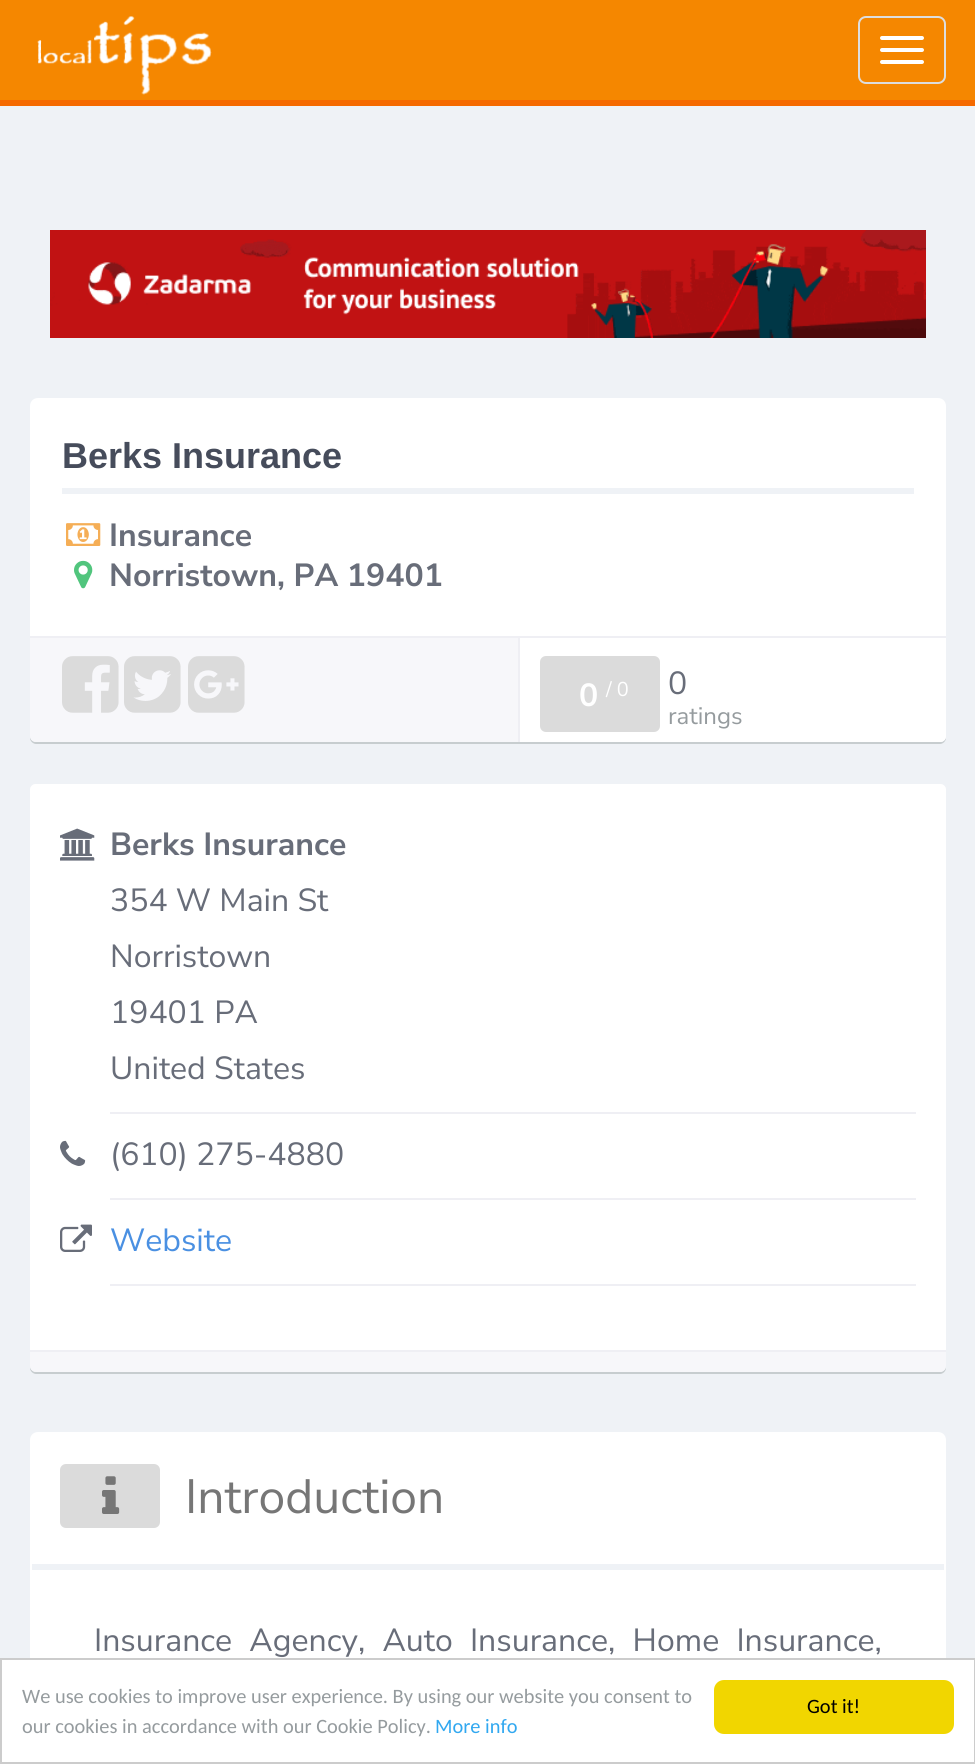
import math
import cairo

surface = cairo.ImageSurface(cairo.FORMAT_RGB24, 975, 1764)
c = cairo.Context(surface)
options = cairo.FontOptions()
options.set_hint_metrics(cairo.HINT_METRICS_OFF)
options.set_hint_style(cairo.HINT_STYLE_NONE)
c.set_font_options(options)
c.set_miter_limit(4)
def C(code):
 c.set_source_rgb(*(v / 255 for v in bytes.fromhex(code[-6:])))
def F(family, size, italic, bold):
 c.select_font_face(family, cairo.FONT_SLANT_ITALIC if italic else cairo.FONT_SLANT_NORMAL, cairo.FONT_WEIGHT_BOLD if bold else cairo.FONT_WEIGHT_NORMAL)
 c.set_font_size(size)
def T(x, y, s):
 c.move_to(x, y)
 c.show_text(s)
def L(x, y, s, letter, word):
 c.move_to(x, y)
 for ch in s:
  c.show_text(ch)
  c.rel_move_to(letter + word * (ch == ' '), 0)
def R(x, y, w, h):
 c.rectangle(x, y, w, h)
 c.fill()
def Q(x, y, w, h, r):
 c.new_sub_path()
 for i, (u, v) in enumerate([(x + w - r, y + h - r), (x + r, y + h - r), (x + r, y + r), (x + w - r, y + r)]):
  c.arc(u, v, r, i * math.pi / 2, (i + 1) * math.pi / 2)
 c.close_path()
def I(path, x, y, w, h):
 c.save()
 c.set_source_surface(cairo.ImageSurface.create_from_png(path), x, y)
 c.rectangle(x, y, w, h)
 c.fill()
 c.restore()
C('eff2f6')
c.paint()
C('f58700')
R(0,0,975,100)
C('f56a00')
R(0,100,975,6)
I('1.png',37,16,175,79)
Q(859,17,86,66,7)
C('dddddd')
c.stroke()
C('ffffff')
Q(880,36,44,4,2)
c.fill()
Q(880,48,44,4,2)
c.fill()
Q(880,60,44,4,2)
c.fill()
I('2.png',50,230,876,108)
c.new_path()
c.move_to(38,398)
c.line_to(938,398)
c.curve_to(942.5,398,946,401.5,946,406)
c.line_to(946,636)
c.line_to(30,636)
c.line_to(30,406)
c.curve_to(30,401.5,33.5,398,38,398)
c.close_path()
c.fill()
C('eff2f6')
R(62,488,852,6)
F('Liberation Sans',36,0,1)
C('464c5b')
T(62,468,'Berks Insurance')
I('3.png',66,523,35,23)
F('Nunito Sans',32,0,1)
C('686d79')
T(109,546,'Insurance')
I('4.png',74,560,19,29)
T(109,586,'Norristown, PA 19401')
C('c7cdcf')
c.new_path()
c.move_to(30,736)
c.line_to(30,738)
c.curve_to(30,741,33,744,36,744)
c.line_to(940,744)
c.curve_to(943,744,946,741,946,738)
c.line_to(946,736)
c.curve_to(946,739,943,742,940,742)
c.line_to(36,742)
c.curve_to(33,742,30,739,30,736)
c.close_path()
c.fill()
C('f7f7fa')
c.new_path()
c.move_to(30,636)
c.line_to(946,636)
c.line_to(946,736)
c.curve_to(946,739.5,943.5,742,940,742)
c.line_to(36,742)
c.curve_to(32.5,742,30,739.5,30,736)
c.close_path()
c.fill()
C('efeff4')
R(30,636,916,2)
I('5.png',62,656,57,57)
I('6.png',124,656,57,57)
I('7.png',188,656,57,57)
C('ffffff')
c.new_path()
c.move_to(518,638)
c.line_to(946,638)
c.line_to(946,736)
c.curve_to(946,739.5,943.5,742,940,742)
c.line_to(518,742)
c.close_path()
c.fill()
C('efeff4')
R(518,638,2,104)
C('dbdbdb')
Q(540,656,120,76,6)
c.fill()
C('ffffff')
T(579,706,'0')
F('Nunito Sans',20,0,0)
T(606,696,'/ 0')
F('Nunito Sans',32,0,0)
C('686d79')
T(668,694,'0')
F('Nunito Sans',24,0,0)
C('959b9e')
T(668,724,'ratings')
C('c7cdcf')
c.new_path()
c.move_to(30,1366)
c.line_to(30,1368)
c.curve_to(30,1371,33,1374,36,1374)
c.line_to(940,1374)
c.curve_to(943,1374,946,1371,946,1368)
c.line_to(946,1366)
c.curve_to(946,1369,943,1372,940,1372)
c.line_to(36,1372)
c.curve_to(33,1372,30,1369,30,1366)
c.close_path()
c.fill()
C('f7f7fa')
Q(30,784,916,588,6)
c.fill()
C('ffffff')
c.new_path()
c.move_to(36,784)
c.line_to(940,784)
c.curve_to(943.5,784,946,786.5,946,790)
c.line_to(946,1352)
c.line_to(30,1352)
c.line_to(30,790)
c.curve_to(30,786.5,32.5,784,36,784)
c.close_path()
c.fill()
C('efeff4')
R(30,1350,916,2)
I('8.png',60,828,35,33)
R(110,1112,806,2)
F('Nunito Sans',32,0,1)
C('686d79')
T(110,855,'Berks Insurance')
F('Nunito Sans',32,0,0)
T(110,911,'354 W Main St')
T(110,967,'Norristown')
T(110,1023,'19401 PA')
T(110,1079,'United States')
I('9.png',60,1140,26,26)
C('efeff4')
R(110,1198,806,2)
C('686d79')
T(110,1165,'(610) 275-4880')
I('10.png',60,1224,32,28)
C('efeff4')
R(110,1284,806,2)
C('4a90e2')
T(110,1251,'Website')
C('ffffff')
c.new_path()
c.move_to(38,1432)
c.line_to(938,1432)
c.curve_to(942.5,1432,946,1435.5,946,1440)
c.line_to(946,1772)
c.line_to(30,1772)
c.line_to(30,1440)
c.curve_to(30,1435.5,33.5,1432,38,1432)
c.close_path()
c.fill()
C('eff2f6')
R(32,1564,912,6)
C('dbdbdb')
Q(60,1464,100,64,6)
c.fill()
I('11.png',102,1476,18,38)
F('Nunito Sans',48,0,0)
C('767676')
T(185,1513,'Introduction')
F('Nunito Sans',32,0,0)
C('686d79')
L(94,1651,'Insurance Agency, Auto Insurance, Home Insurance,',0,9)
C('ffffff')
c.rectangle(1,1659,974,104)
c.fill_preserve()
C('cccccc')
c.stroke()
F('Carlito',20.4,0,0)
C('959b9e')
T(22,1703,'We use cookies to improve user experience. By using our website you consent to')
T(22,1733,'our cookies in accordance with our Cookie Policy.')
C('31a8f0')
T(435,1733,'More info')
C('f1d600')
Q(714,1680,240,54,10)
c.fill()
C('000000')
T(807,1713,'Got it!')
surface.write_to_png('o.png')
